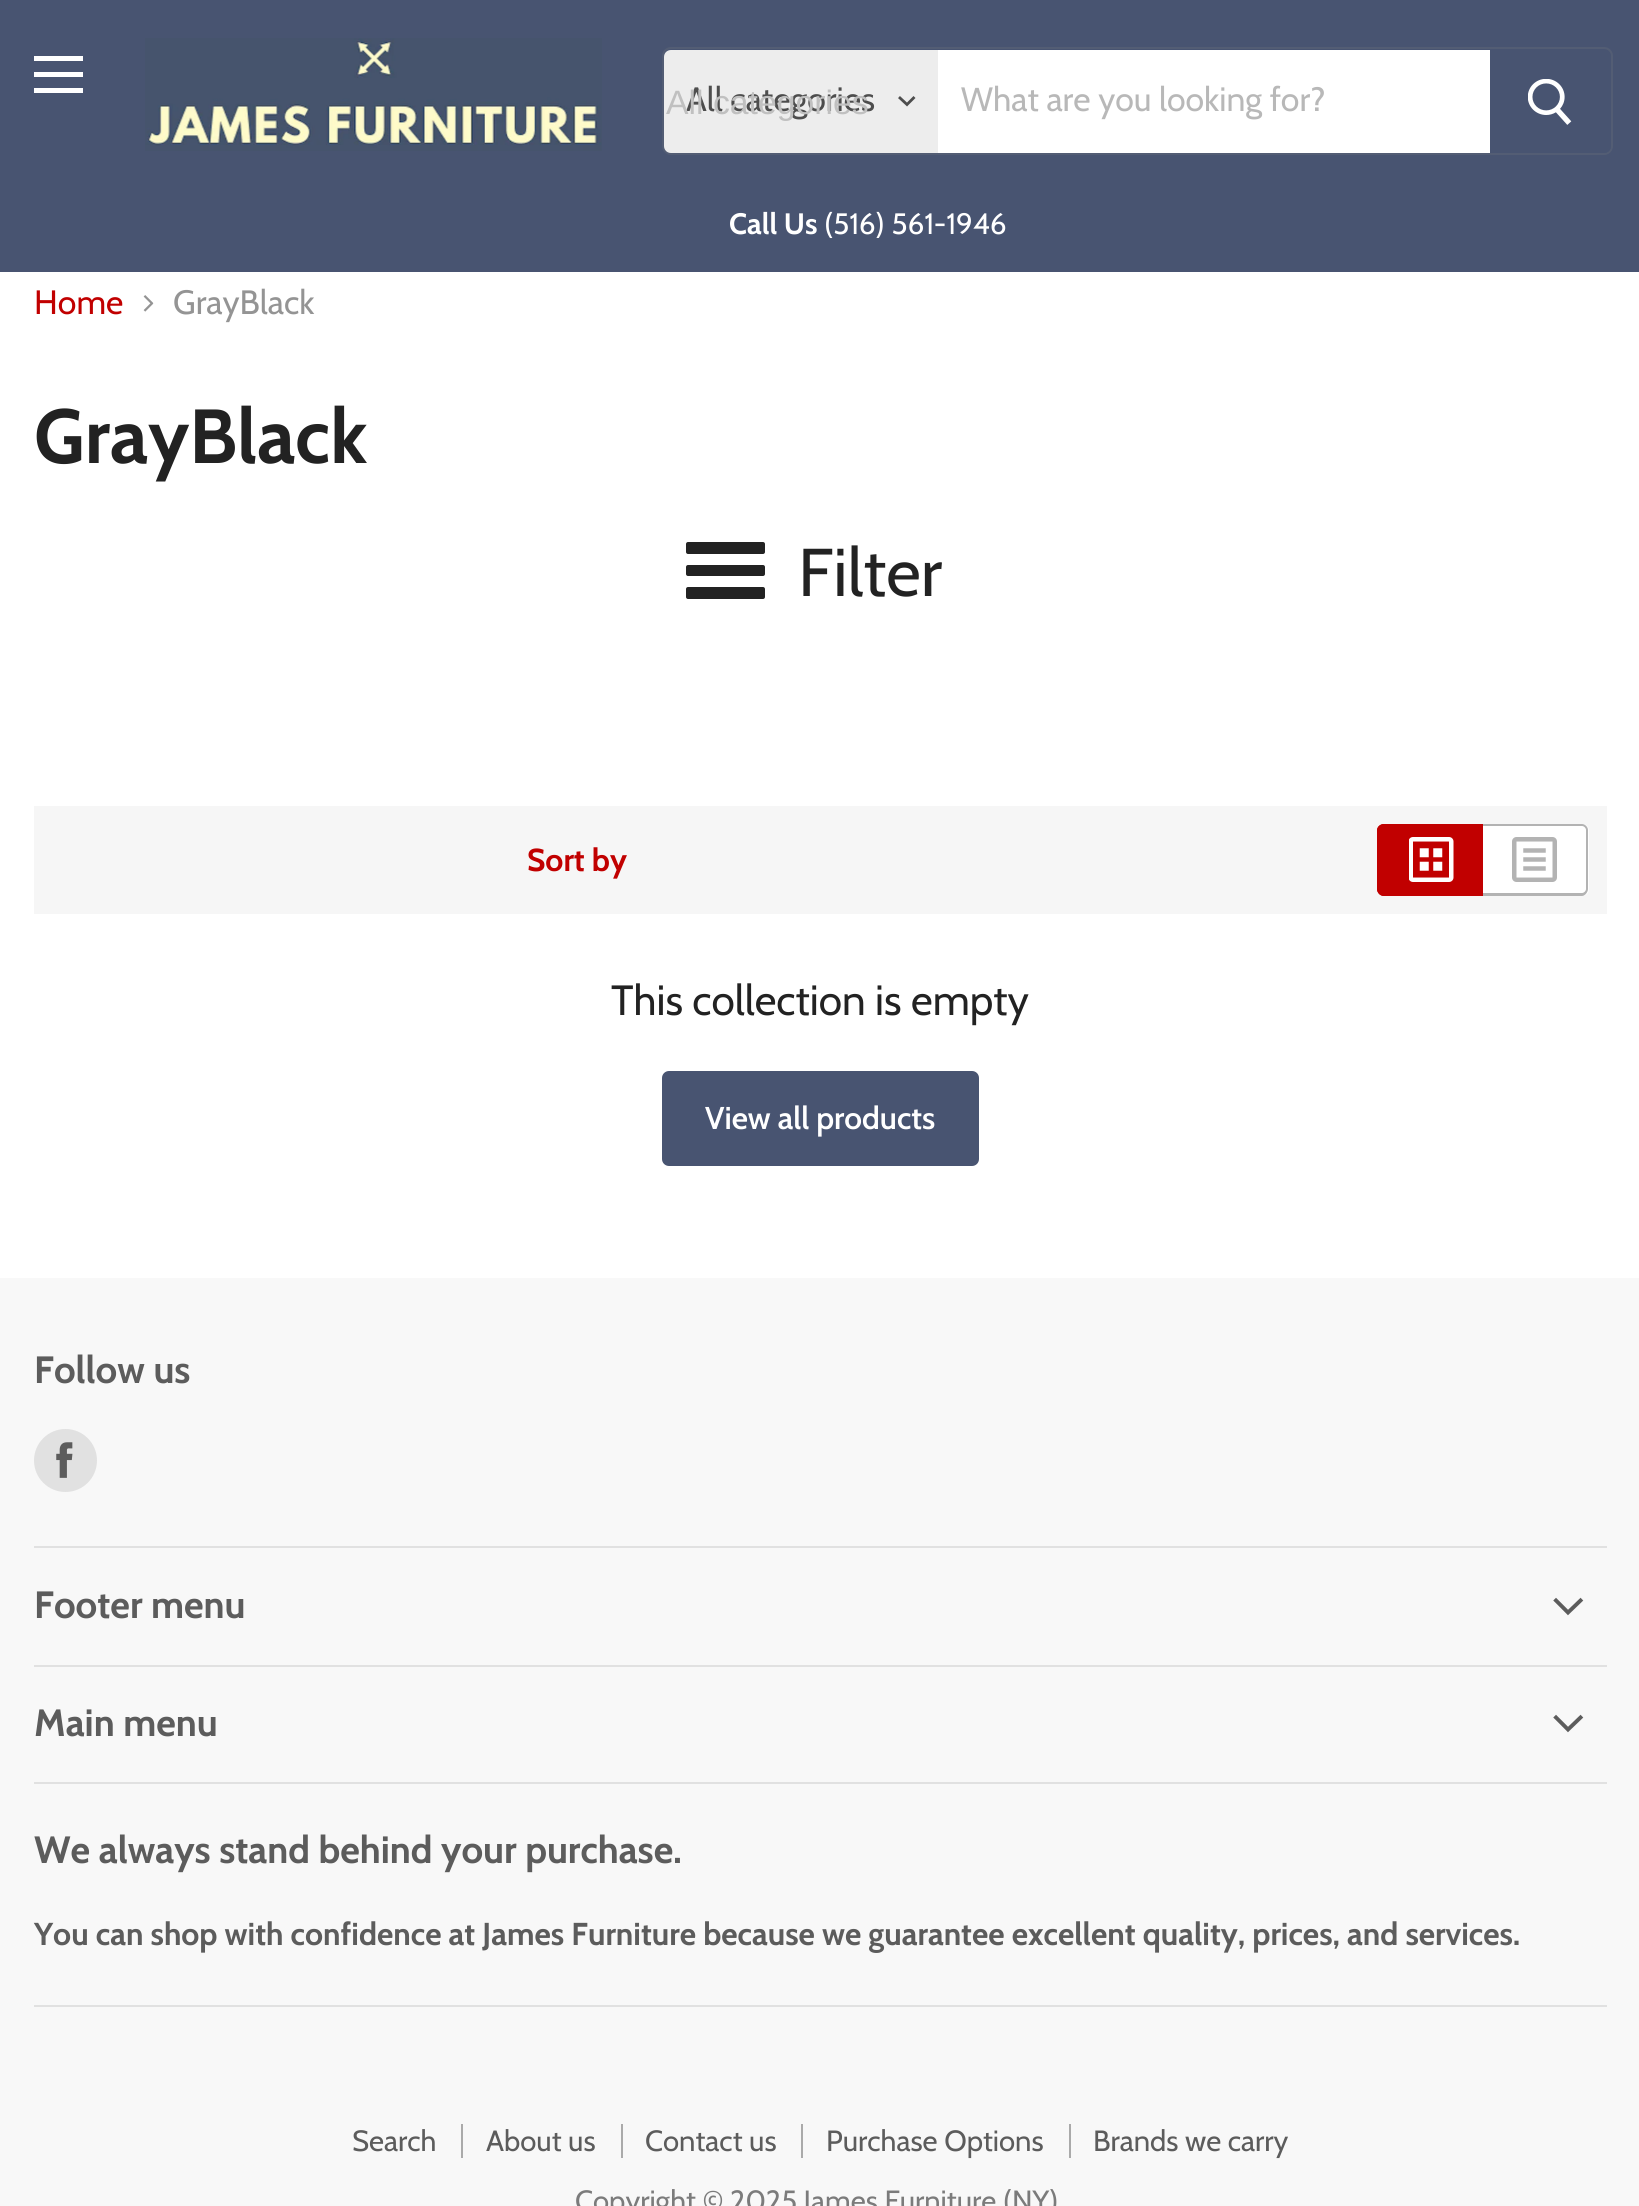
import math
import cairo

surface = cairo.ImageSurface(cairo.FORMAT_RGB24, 1639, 2206)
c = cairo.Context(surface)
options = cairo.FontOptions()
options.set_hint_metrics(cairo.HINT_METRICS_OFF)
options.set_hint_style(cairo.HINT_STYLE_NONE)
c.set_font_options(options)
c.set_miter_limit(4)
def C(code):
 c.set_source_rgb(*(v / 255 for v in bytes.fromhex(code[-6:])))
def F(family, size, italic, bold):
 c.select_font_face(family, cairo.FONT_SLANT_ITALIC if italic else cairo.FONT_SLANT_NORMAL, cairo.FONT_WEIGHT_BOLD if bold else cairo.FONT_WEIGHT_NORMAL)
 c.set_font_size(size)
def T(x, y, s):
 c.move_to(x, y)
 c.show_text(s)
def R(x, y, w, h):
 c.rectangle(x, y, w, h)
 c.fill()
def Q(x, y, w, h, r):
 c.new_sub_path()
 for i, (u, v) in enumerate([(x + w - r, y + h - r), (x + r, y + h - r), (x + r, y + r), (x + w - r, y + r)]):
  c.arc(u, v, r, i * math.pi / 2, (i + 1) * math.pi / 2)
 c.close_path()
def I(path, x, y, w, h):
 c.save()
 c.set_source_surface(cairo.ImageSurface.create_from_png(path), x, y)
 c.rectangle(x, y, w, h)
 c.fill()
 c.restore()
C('ffffff')
c.paint()
C('485471')
R(0,0,1639,272)
C('ffffff')
R(34,56,49,5)
R(34,72,49,5)
R(34,88,49,5)
I('1.png',145,38,457,113)
Q(663,48,949,106,8)
C('535d74')
c.stroke()
C('ededed')
c.new_path()
c.move_to(671,50)
c.line_to(938,50)
c.line_to(938,153)
c.line_to(671,153)
c.curve_to(667,153,664,150,664,146)
c.line_to(664,57)
c.curve_to(664,53,667,50,671,50)
c.close_path()
c.fill()
F('Cabin',33.75,0,0)
C('4d4d4d')
T(686,111,'All categories')
F('Liberation Sans',33.75,0,0)
C('c0c0c0')
T(666,114,'All categories')
c.new_path()
c.move_to(907,104.5)
c.line_to(913.5,98)
c.move_to(907,104.5)
c.line_to(900,98)
C('4d4d4d')
c.set_line_width(2.8)
c.set_line_cap(cairo.LINE_CAP_SQUARE)
c.stroke()
C('ffffff')
R(938,50,552,103)
F('Cabin',33.75,0,0)
C('b8b8b8')
T(961,111,'What are you looking for?')
C('485471')
c.new_path()
c.move_to(1490,50)
c.line_to(1604,50)
c.curve_to(1608,50,1611,53,1611,57)
c.line_to(1611,146)
c.curve_to(1611,150,1608,153,1604,153)
c.line_to(1490,153)
c.close_path()
c.fill()
I('2.png',1528,79,44,46)
F('Cabin',29.5,0,1)
C('ffffff')
T(729,234,'Call Us')
F('Cabin',29.5,0,0)
T(824,234,'(516) 561-1946')
F('Cabin',33.75,0,0)
C('c10000')
T(34,314,'Home')
I('3.png',143,295,11,17)
C('949494')
T(173,314,'GrayBlack')
F('Cabin',76.5,0,1)
C('222222')
T(34,463,'GrayBlack')
Q(686,565,79,11,2)
c.fill()
Q(686,542,79,12,2)
c.fill()
Q(686,587,79,12,2)
c.fill()
F('Cabin',67.5,0,0)
T(798,596,'Filter')
C('f6f6f6')
R(34,806,1573,108)
F('Cabin',31.65,0,1)
C('c10000')
T(527,871,'Sort by')
c.new_path()
c.move_to(1384,824)
c.line_to(1483,824)
c.line_to(1483,896)
c.line_to(1384,896)
c.curve_to(1380,896,1377,893,1377,889)
c.line_to(1377,831)
c.curve_to(1377,827,1380,824,1384,824)
c.close_path()
c.fill()
c.set_fill_rule(cairo.FILL_RULE_EVEN_ODD)
c.new_path()
c.move_to(1384,824)
c.line_to(1483,824)
c.line_to(1483,896)
c.line_to(1384,896)
c.curve_to(1380,896,1377,892,1377,889)
c.line_to(1377,830)
c.curve_to(1377,827,1380,824,1384,824)
c.close_path()
c.move_to(1384,826)
c.line_to(1483,826)
c.line_to(1483,893)
c.line_to(1384,893)
c.curve_to(1381,893,1379,891,1379,889)
c.line_to(1379,830)
c.curve_to(1379,828,1381,826,1384,826)
c.close_path()
c.fill()
I('4.png',1409,837,45,45)
C('ffffff')
c.new_path()
c.move_to(1483,824)
c.line_to(1582,824)
c.curve_to(1586,824,1589,827,1589,831)
c.line_to(1589,889)
c.curve_to(1589,893,1586,896,1582,896)
c.line_to(1483,896)
c.close_path()
c.fill()
C('b3b3b3')
c.new_path()
c.move_to(1483,824)
c.line_to(1582,824)
c.curve_to(1585,824,1588,827,1588,830)
c.line_to(1588,889)
c.curve_to(1588,892,1585,896,1582,896)
c.line_to(1483,896)
c.close_path()
c.move_to(1483,826)
c.line_to(1582,826)
c.curve_to(1584,826,1586,828,1586,830)
c.line_to(1586,889)
c.curve_to(1586,891,1584,893,1582,893)
c.line_to(1483,893)
c.close_path()
c.fill()
I('5.png',1512,837,45,45)
F('Cabin',42.25,0,0)
C('222222')
T(611,1015,'This collection is empty')
C('485471')
Q(663,1072,315,93,6)
c.fill_preserve()
c.set_line_width(2)
c.set_line_cap(cairo.LINE_CAP_BUTT)
c.stroke()
F('Cabin SemiBold',31.5,0,0)
C('ffffff')
T(705,1129,'View all products')
C('f8f8f8')
R(0,1278,1639,928)
C('e1e1e1')
R(34,1546,1573,2)
F('Cabin',38,0,1)
C('5c5c5c')
T(34,1383,'Follow us')
C('e1e1e1')
c.new_path()
c.arc(65.5,1460.5,31.5,0,2 * math.pi)
c.fill()
I('6.png',56,1442,17,36)
R(34,1665,1573,2)
C('5c5c5c')
T(34,1618,'Footer menu')
c.new_path()
c.move_to(1568,1612.5)
c.line_to(1580.5,1600.5)
c.move_to(1568,1612.5)
c.line_to(1556,1600.5)
c.set_line_width(3.9)
c.set_line_cap(cairo.LINE_CAP_SQUARE)
c.stroke()
C('e1e1e1')
R(34,1782,1573,2)
C('5c5c5c')
T(34,1736,'Main menu')
c.new_path()
c.move_to(1568,1729.5)
c.line_to(1580.5,1717.5)
c.move_to(1568,1729.5)
c.line_to(1556,1717.5)
c.stroke()
C('e1e1e1')
R(34,2005,1573,2)
C('5c5c5c')
T(34,1863,'We always stand behind your purchase.')
F('Cabin',31.65,0,1)
T(34,1945,'You can shop with confidence at James Furniture because we guarantee excellent quality, prices, and services.')
C('aaaaaa')
R(461,2124,2,34)
F('Cabin',29.25,0,0)
C('5c5c5c')
T(352,2151,'Search')
C('aaaaaa')
R(621,2124,2,34)
C('5c5c5c')
T(486,2151,'About us')
C('aaaaaa')
R(801,2124,2,34)
C('5c5c5c')
T(645,2151,'Contact us')
C('aaaaaa')
R(1069,2124,2,34)
C('5c5c5c')
T(826,2151,'Purchase Options')
T(1093,2151,'Brands we carry')
C('7b7b7b')
T(575,2211,'Copyright © 2025 James Furniture (NY)')
surface.write_to_png('o.png')
